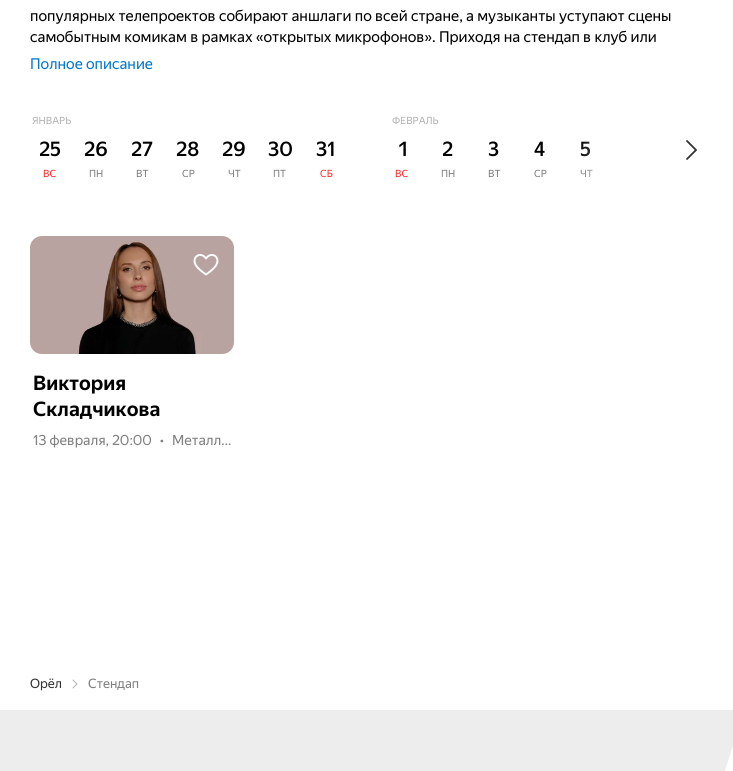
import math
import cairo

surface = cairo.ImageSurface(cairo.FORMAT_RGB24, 733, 771)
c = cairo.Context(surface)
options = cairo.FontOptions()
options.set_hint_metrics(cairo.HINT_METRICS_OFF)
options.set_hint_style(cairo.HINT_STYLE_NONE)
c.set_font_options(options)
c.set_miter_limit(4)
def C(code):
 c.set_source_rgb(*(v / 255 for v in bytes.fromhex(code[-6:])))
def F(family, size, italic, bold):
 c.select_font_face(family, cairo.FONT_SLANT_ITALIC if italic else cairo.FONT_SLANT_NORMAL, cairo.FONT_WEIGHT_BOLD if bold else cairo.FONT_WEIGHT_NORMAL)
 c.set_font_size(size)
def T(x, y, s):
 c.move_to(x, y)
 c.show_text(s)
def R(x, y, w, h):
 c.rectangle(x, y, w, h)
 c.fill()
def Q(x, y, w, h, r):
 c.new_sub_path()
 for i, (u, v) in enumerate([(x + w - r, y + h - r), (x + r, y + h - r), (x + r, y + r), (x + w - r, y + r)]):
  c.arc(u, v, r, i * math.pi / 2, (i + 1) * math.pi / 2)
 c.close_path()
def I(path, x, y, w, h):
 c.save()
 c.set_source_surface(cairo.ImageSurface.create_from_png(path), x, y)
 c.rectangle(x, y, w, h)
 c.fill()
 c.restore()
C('ffffff')
c.paint()
F('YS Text',15,0,0)
C('000000')
T(30,21,'популярных телепроектов собирают аншлаги по всей стране, а музыканты уступают сцены')
T(30,42,'самобытным комикам в рамках «открытых микрофонов». Приходя на стендап в клуб или')
C('0077cc')
T(30,69,'Полное описание')
F('YS Text',10,0,0)
C('b3b3b3')
T(32,124,'ЯНВАРЬ')
F('YS Text Medium',20,0,0)
C('000000')
T(39,156,'25')
F('YS Text',10,0,0)
C('f72f2f')
T(43,177,'ВС')
F('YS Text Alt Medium',20,0,0)
C('000000')
T(84,156,'26')
F('YS Text',10,0,0)
C('808080')
T(89,177,'ПН')
F('YS Text Medium',20,0,0)
C('000000')
T(131,156,'27')
F('YS Text',10,0,0)
C('808080')
T(136,177,'ВТ')
F('YS Text Alt Medium',20,0,0)
C('000000')
T(176,156,'28')
F('YS Text',10,0,0)
C('808080')
T(182,177,'СР')
F('YS Text Alt Medium',20,0,0)
C('000000')
T(222,156,'29')
F('YS Text',10,0,0)
C('808080')
T(228,177,'ЧТ')
F('YS Text Alt Medium',20,0,0)
C('000000')
T(268,156,'30')
F('YS Text',10,0,0)
C('808080')
T(273,177,'ПТ')
F('YS Text Alt Medium',20,0,0)
C('000000')
T(316,156,'31')
F('YS Text',10,0,0)
C('f72f2f')
T(320,177,'СБ')
C('b3b3b3')
T(392,124,'ФЕВРАЛЬ')
F('YS Text Medium',20,0,0)
C('000000')
T(398,156,'1')
F('YS Text',10,0,0)
C('f72f2f')
T(395,177,'ВС')
F('YS Text Medium',20,0,0)
C('000000')
T(442,156,'2')
F('YS Text',10,0,0)
C('808080')
T(441,177,'ПН')
F('YS Text Medium',20,0,0)
C('000000')
T(488,156,'3')
F('YS Text',10,0,0)
C('808080')
T(488,177,'ВТ')
F('YS Text Medium',20,0,0)
C('000000')
T(534,156,'4')
F('YS Text',10,0,0)
C('808080')
T(534,177,'СР')
F('YS Text Medium',20,0,0)
C('000000')
T(580,156,'5')
F('YS Text',10,0,0)
C('808080')
T(580,177,'ЧТ')
gradient = cairo.LinearGradient(679,162,579,162)
gradient.add_color_stop_rgba(0,1,1,1,1)
gradient.add_color_stop_rgba(.39,1,1,1,1)
gradient.add_color_stop_rgba(1,1,1,1,0)
c.set_source(gradient)
R(581,141,11,36)
c.new_path()
c.move_to(687,159)
c.line_to(696,150)
c.line_to(687,141)
C('333333')
c.set_line_width(1.8)
c.set_line_cap(cairo.LINE_CAP_ROUND)
c.stroke()
I('1.png',30,236,204,118)
c.set_source_rgba(0,0,0,0.2)
Q(30,236,204,118,12)
c.fill()
c.new_path()
c.move_to(206,274.5)
c.curve_to(202.5,272,197.5,268.5,195.5,264.5)
c.curve_to(191.5,256.5,201,251,206,258.5)
c.curve_to(211,251,220.5,256.5,216.5,264.5)
c.curve_to(214.5,268.5,209.5,272,206,274.5)
c.close_path()
C('ffffff')
c.set_line_width(1.9)
c.set_line_cap(cairo.LINE_CAP_SQUARE)
c.set_line_join(cairo.LINE_JOIN_ROUND)
c.stroke()
F('YS Text',20,0,1)
C('000000')
T(33,390,'Виктория')
T(33,416,'Складчикова')
F('YS Text Alt',14,0,0)
C('808080')
T(33,445,'13 февраля, 20:00')
F('YS Text',14,0,0)
T(160,445,'•')
T(172,445,'Металл…')
F('YS Text',13,0,0)
C('333333')
T(30,688,'Орёл')
c.new_path()
c.move_to(73,680)
c.line_to(77,684)
c.line_to(73,688)
C('b3b3b3')
c.set_line_width(1)
c.set_line_cap(cairo.LINE_CAP_ROUND)
c.stroke()
C('808080')
T(88,688,'Стендап')
C('ededed')
R(0,710,733,61)
C('ffffff')
c.set_fill_rule(cairo.FILL_RULE_EVEN_ODD)
c.new_path()
c.move_to(493,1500)
c.line_to(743,714)
c.line_to(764,714)
c.line_to(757,751)
c.line_to(517,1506)
c.close_path()
c.fill()
surface.write_to_png('o.png')
